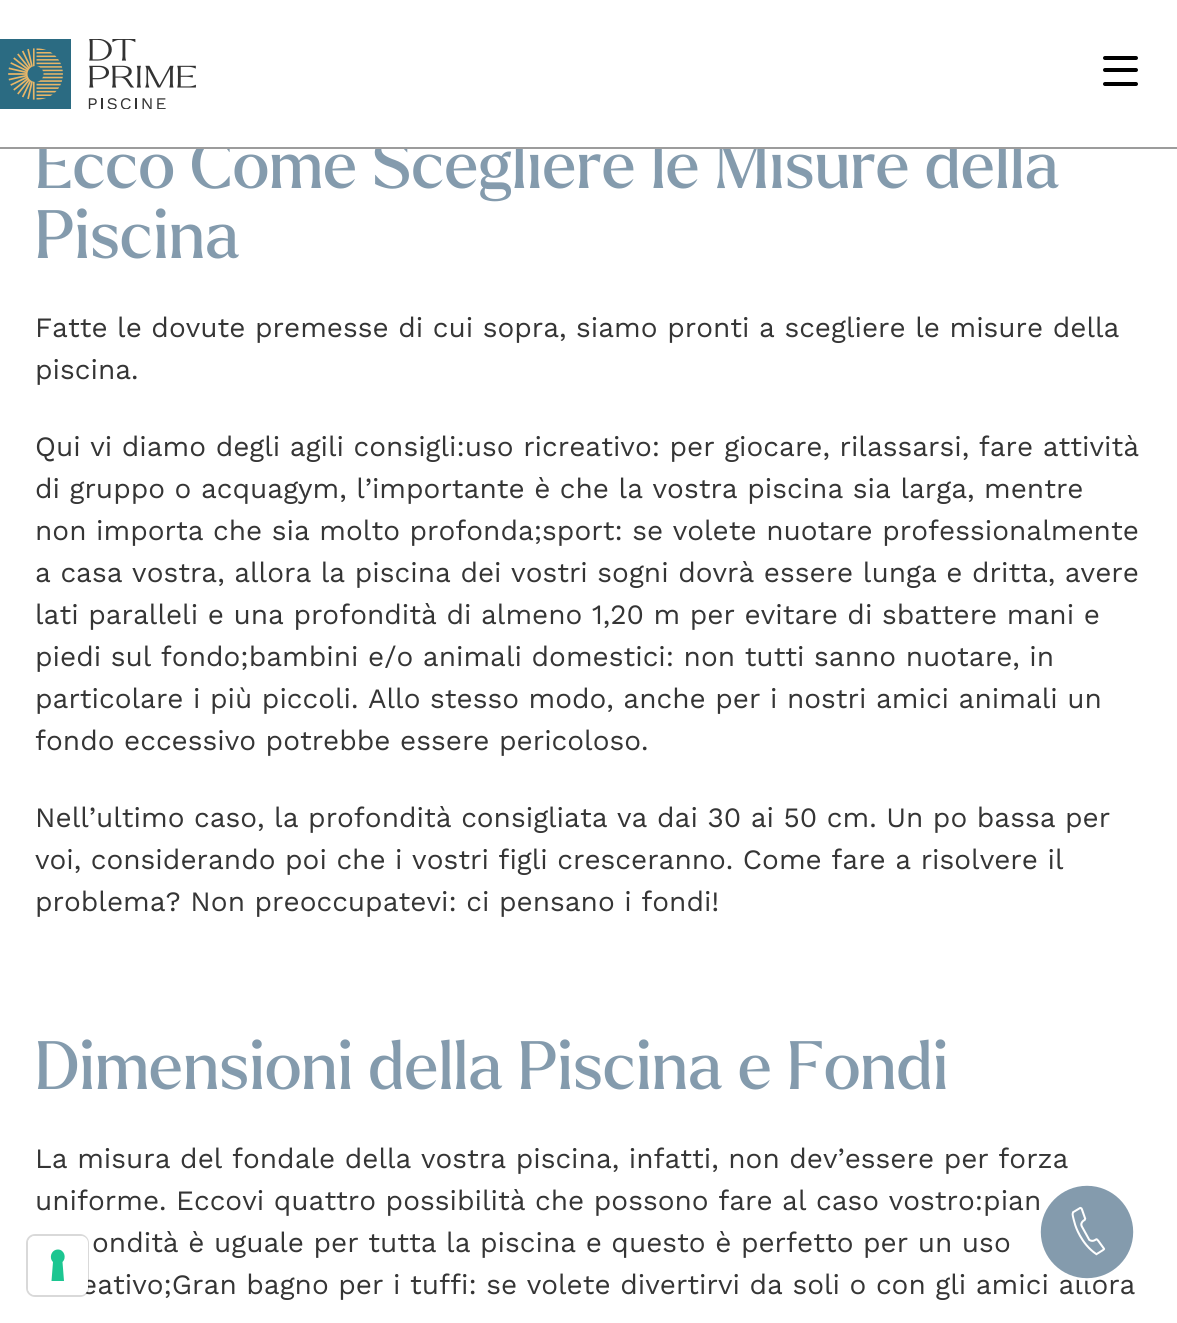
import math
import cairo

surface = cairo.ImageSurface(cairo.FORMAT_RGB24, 1177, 1323)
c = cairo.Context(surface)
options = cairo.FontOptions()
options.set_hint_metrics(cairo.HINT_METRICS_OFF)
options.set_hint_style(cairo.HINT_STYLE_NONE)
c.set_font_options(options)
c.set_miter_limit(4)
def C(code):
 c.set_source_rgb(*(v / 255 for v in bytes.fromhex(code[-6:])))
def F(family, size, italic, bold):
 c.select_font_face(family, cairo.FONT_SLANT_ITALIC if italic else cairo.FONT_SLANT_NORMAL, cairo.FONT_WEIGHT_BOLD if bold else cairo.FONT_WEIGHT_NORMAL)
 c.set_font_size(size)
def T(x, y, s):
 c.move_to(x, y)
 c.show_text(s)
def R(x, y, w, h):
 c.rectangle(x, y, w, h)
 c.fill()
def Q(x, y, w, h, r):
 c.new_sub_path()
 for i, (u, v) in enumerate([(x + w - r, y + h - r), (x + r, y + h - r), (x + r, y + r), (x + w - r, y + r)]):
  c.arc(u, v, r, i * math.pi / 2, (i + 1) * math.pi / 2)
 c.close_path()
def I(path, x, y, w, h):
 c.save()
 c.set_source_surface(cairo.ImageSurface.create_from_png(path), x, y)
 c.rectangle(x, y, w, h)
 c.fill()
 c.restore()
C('ffffff')
c.paint()
F('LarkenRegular',66.5,0,0)
C('849bad')
T(35,188,'Ecco Come Scegliere le Misure della')
C('ffffff')
R(37,138,984,9)
C('9c9c9c')
R(0,147,1177,2)
I('1.png',0,39,196,70)
C('000000')
Q(1103,68,35,4,2)
c.fill()
Q(1103,56,35,4,2)
c.fill()
Q(1103,82,35,4,2)
c.fill()
C('849bad')
T(35,258,'Piscina')
F('Work Sans',28,0,0)
C('353535')
T(35,337,'Fatte le dovute premesse di cui sopra, siamo pronti a scegliere le misure della')
T(35,379,'piscina.')
T(35,456,'Qui vi diamo degli agili consigli:uso ricreativo: per giocare, rilassarsi, fare attività')
T(35,498,'di gruppo o acquagym, l’importante è che la vostra piscina sia larga, mentre')
T(35,540,'non importa che sia molto profonda;sport: se volete nuotare professionalmente')
T(35,582,'a casa vostra, allora la piscina dei vostri sogni dovrà essere lunga e dritta, avere')
T(35,624,'lati paralleli e una profondità di almeno 1,20 m per evitare di sbattere mani e')
T(35,666,'piedi sul fondo;bambini e/o animali domestici: non tutti sanno nuotare, in')
T(35,708,'particolare i più piccoli. Allo stesso modo, anche per i nostri amici animali un')
T(35,750,'fondo eccessivo potrebbe essere pericoloso.')
T(35,827,'Nell’ultimo caso, la profondità consigliata va dai 30 ai 50 cm. Un po bassa per')
T(35,869,'voi, considerando poi che i vostri figli cresceranno. Come fare a risolvere il')
T(35,911,'problema? Non preoccupatevi: ci pensano i fondi!')
F('LarkenRegular',66.5,0,0)
C('849bad')
T(35,1089,'Dimensioni della Piscina e Fondi')
F('Work Sans',28,0,0)
C('353535')
T(35,1168,'La misura del fondale della vostra piscina, infatti, non dev’essere per forza')
T(35,1210,'uniforme. Eccovi quattro possibilità che possono fare al caso vostro:pian')
T(92,1252,'ondità è uguale per tutta la piscina e questo è perfetto per un uso')
T(81,1294,'eativo;Gran bagno per i tuffi: se volete divertirvi da soli o con gli amici allora')
Q(27,1235,61,61,8)
c.set_source_rgba(0,0,0,0.15)
c.stroke()
C('ffffff')
Q(28,1236,60,59,7)
c.fill()
C('1cc691')
c.set_fill_rule(cairo.FILL_RULE_EVEN_ODD)
c.new_path()
c.move_to(58,1249.5)
c.curve_to(64,1249.5,67,1257.5,62.5,1262)
c.line_to(64,1281)
c.line_to(51.5,1281)
c.line_to(53,1262)
c.curve_to(48.5,1257.5,51.5,1249.5,58,1249.5)
c.close_path()
c.fill()
I('2.png',1040,1185,94,96)
surface.write_to_png('o.png')
